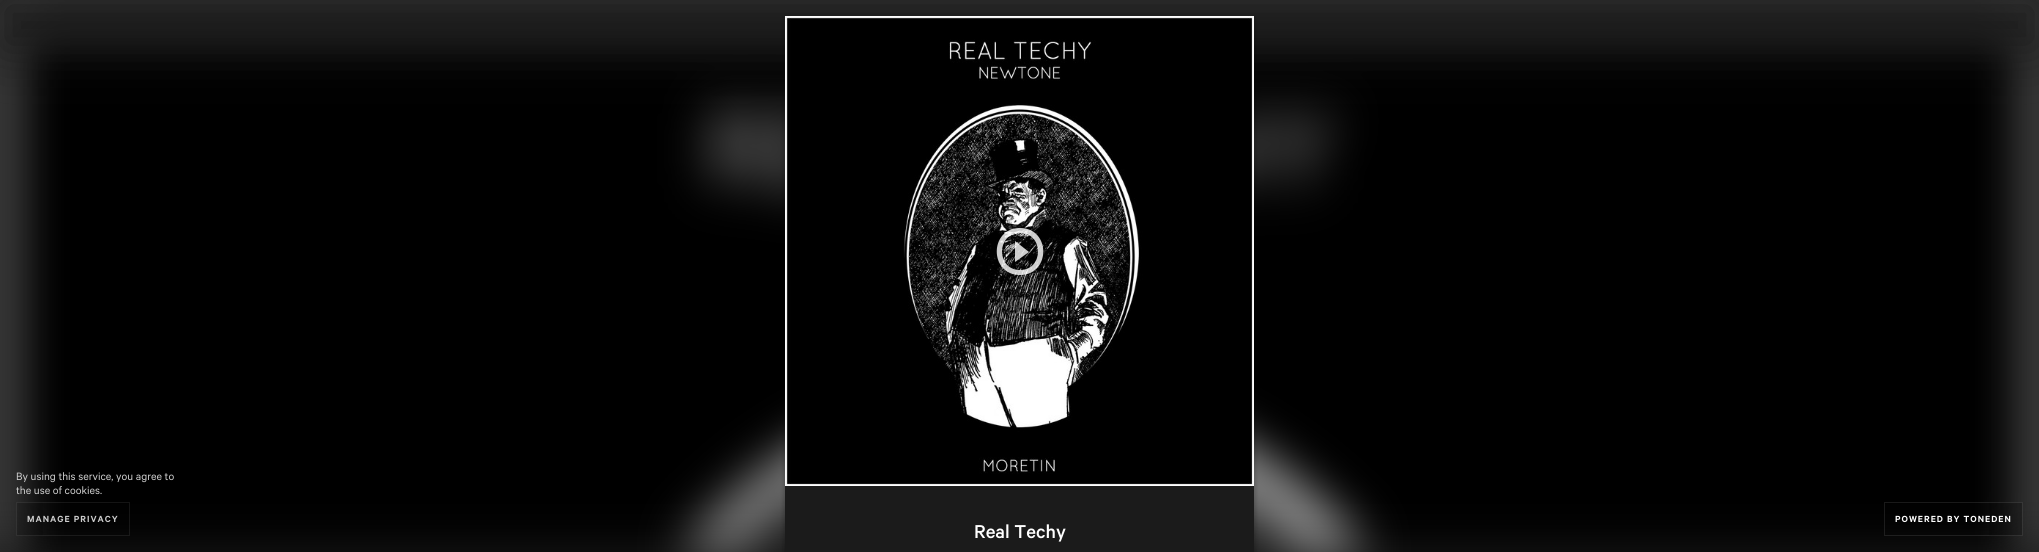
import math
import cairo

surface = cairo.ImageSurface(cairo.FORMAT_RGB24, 2039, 552)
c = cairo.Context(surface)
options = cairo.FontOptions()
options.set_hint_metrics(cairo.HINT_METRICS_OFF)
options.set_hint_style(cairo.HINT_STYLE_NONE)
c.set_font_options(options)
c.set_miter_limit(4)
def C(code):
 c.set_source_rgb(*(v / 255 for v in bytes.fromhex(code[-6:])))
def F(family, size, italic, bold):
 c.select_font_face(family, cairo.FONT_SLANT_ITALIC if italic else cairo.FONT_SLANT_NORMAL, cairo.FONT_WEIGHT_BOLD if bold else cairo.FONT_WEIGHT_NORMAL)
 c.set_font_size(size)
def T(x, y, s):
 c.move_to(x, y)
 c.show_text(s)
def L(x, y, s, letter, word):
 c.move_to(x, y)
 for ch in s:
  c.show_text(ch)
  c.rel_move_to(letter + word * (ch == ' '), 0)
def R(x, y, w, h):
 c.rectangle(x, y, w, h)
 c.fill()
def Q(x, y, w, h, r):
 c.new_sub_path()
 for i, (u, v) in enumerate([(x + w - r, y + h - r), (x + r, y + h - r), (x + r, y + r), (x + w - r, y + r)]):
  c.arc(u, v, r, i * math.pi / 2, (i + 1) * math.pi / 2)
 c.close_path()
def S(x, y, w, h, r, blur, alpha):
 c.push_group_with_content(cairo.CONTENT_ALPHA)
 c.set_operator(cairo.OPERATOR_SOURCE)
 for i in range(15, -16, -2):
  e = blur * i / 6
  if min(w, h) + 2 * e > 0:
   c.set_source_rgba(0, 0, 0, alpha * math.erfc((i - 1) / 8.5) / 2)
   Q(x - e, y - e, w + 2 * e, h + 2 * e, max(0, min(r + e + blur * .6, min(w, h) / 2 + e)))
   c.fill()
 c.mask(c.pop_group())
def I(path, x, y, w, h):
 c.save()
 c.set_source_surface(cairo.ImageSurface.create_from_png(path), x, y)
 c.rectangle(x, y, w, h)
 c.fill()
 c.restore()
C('1b1b1b')
c.paint()
I('1.png',0,0,2039,552)
S(0,0,2039,50,0,25,1)
F('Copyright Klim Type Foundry',12,0,0)
C('cdcdcd')
T(16,480,'By using this service, you agree to')
T(16,494,'the use of cookies.')
c.set_source_rgba(0,0,0,0.16)
R(16,502,27,34)
c.rectangle(16.5,502.5,113,33)
c.set_source_rgba(1,1,1,0.08)
c.set_line_width(1)
c.stroke()
F('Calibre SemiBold',10,0,0)
C('cdcdcd')
L(27,522,'MANAGE PRIVACY',1,0)
c.set_source_rgba(0,0,0,0.2)
R(1989,502,34,34)
c.rectangle(1884.5,502.5,138,33)
c.set_source_rgba(1,1,1,0.1)
c.stroke()
C('ffffff')
L(1895,522,'POWERED BY TONEDEN',1,0)
C('000000')
S(785,19,469,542,0,3,.21)
S(785,19,469,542,0,3,.12)
I('2.png',785,16,469,470)
c.set_source_rgba(1,1,1,0.8)
c.new_path()
c.move_to(1015,262)
c.line_to(1029,252)
c.line_to(1015,241)
c.close_path()
c.move_to(1020,228)
c.curve_to(989,228,989,275,1020,275)
c.curve_to(1051,275,1051,228,1020,228)
c.close_path()
c.move_to(1020,270)
c.curve_to(996,270,996,233,1020,233)
c.curve_to(1044,233,1044,270,1020,270)
c.close_path()
c.fill()
C('1b1b1b')
R(785,486,469,66)
F('Calibre Medium',21,0,0)
C('ffffff')
T(974,538,'Real Techy')
surface.write_to_png('o.png')
